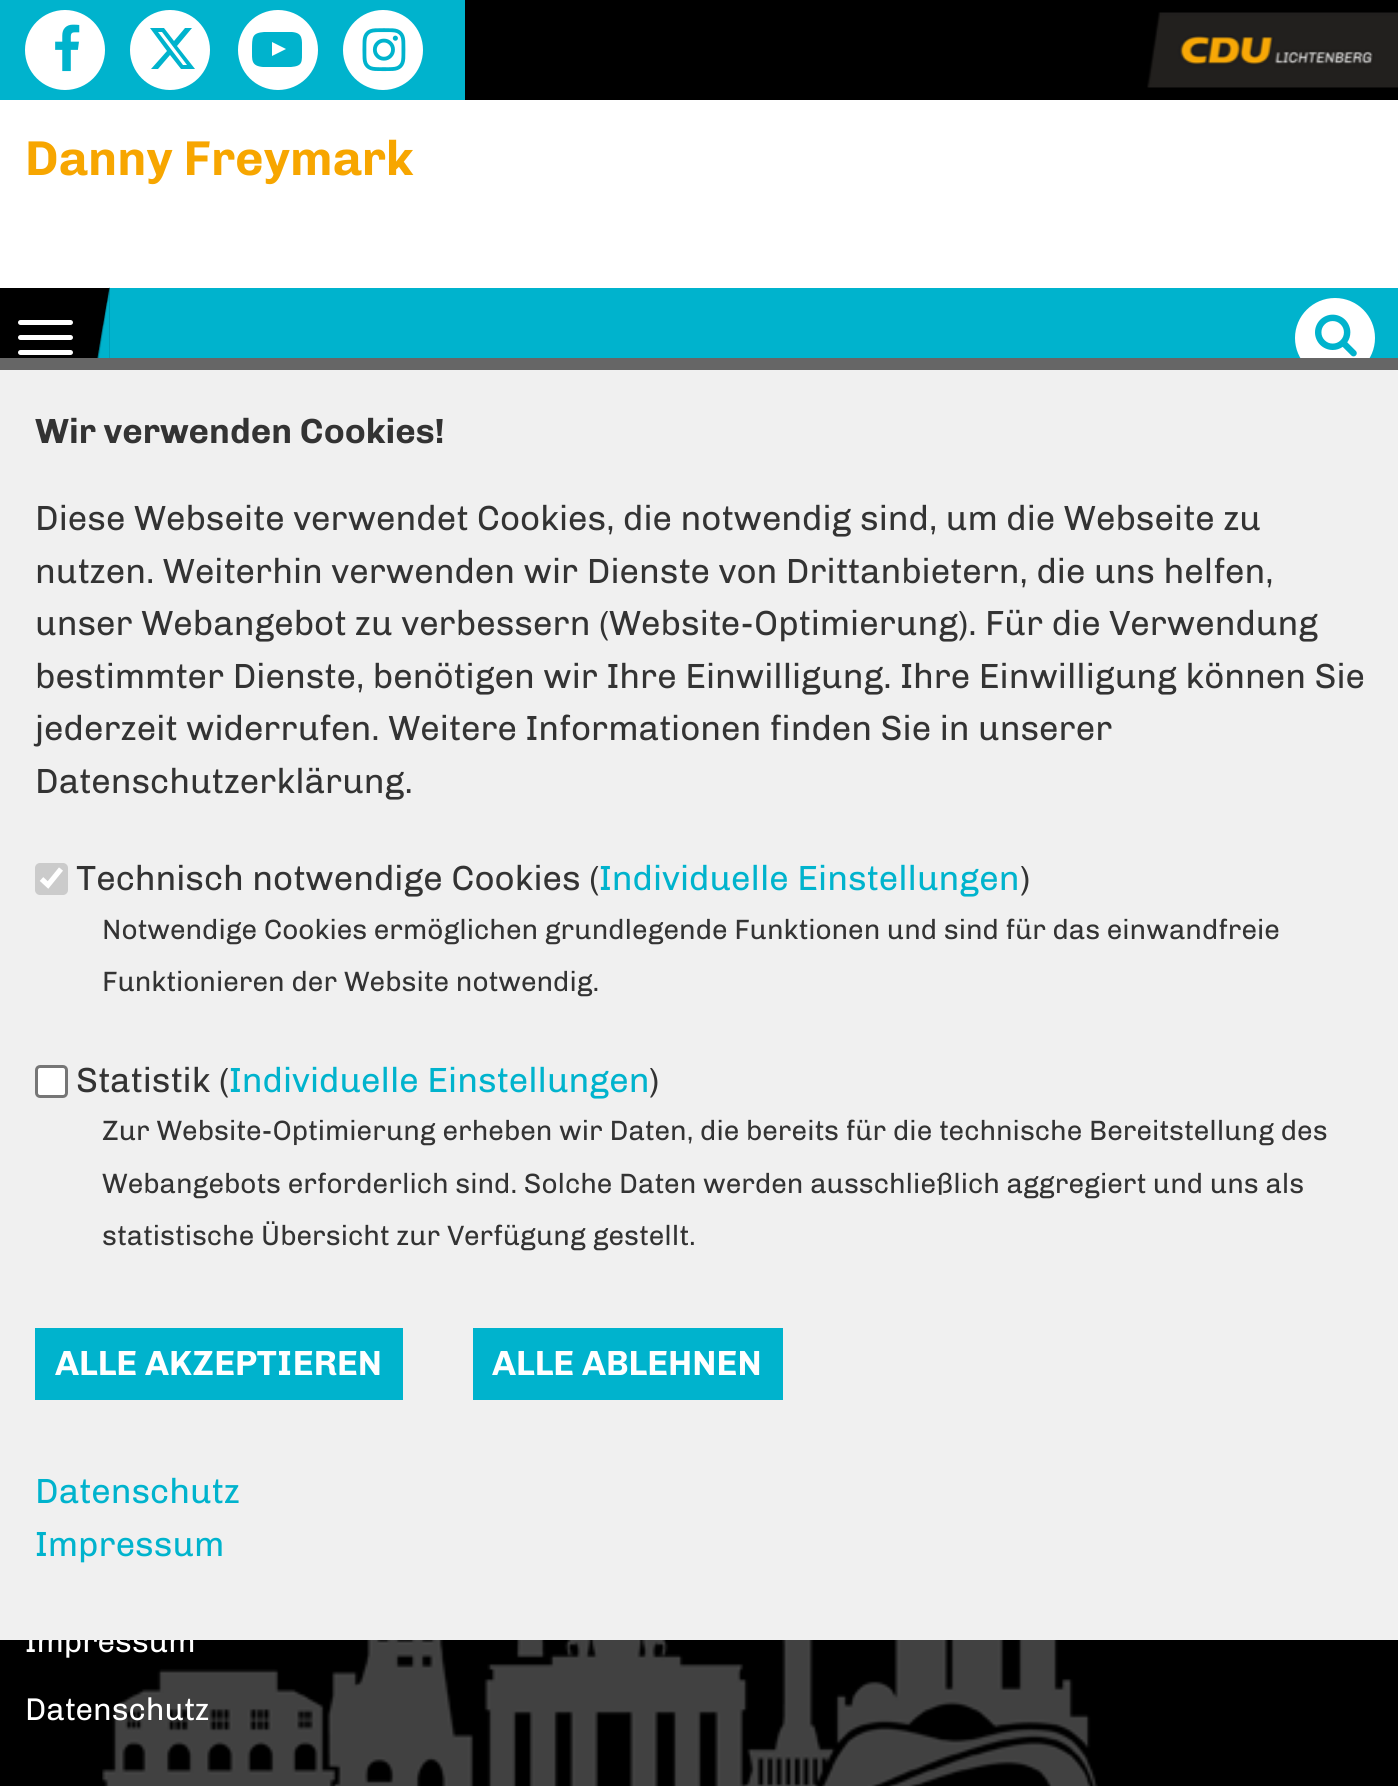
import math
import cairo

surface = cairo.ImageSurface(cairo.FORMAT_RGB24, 1398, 1786)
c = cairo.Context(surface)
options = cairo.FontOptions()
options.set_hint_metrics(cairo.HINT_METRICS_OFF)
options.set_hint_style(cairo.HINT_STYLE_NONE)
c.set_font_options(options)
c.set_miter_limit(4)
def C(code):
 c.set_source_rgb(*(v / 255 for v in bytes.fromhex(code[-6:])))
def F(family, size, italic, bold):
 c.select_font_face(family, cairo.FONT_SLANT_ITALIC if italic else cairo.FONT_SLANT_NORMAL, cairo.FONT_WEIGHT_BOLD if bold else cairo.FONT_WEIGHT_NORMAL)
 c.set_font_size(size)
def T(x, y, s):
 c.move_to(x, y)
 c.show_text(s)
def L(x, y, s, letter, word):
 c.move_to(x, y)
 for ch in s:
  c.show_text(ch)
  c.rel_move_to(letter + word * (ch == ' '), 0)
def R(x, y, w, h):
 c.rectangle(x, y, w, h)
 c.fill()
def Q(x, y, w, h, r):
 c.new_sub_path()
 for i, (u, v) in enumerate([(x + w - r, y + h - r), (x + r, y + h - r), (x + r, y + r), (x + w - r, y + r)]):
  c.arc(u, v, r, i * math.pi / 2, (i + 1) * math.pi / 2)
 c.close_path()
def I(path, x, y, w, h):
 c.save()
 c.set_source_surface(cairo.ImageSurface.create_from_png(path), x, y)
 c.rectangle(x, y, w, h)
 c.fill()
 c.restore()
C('000000')
c.paint()
C('ffffff')
R(0,100,1398,188)
C('00b3cd')
R(0,0,465,100)
C('ffffff')
c.arc(65,50,37.5,0,2 * math.pi)
c.fill_preserve()
c.set_line_width(5)
c.stroke()
I('1.png',55,24,25,48)
c.arc(170,50,37.5,0,2 * math.pi)
c.fill_preserve()
c.stroke()
C('00b3cd')
c.new_path()
c.move_to(185,28)
c.line_to(192,28)
c.line_to(177,46)
c.line_to(195,69)
c.line_to(181,69)
c.line_to(170,55)
c.line_to(158,69)
c.line_to(151,69)
c.line_to(167,51)
c.line_to(150,28)
c.line_to(164,28)
c.line_to(174,41)
c.close_path()
c.move_to(183,65)
c.line_to(187,65)
c.line_to(162,32)
c.line_to(158,32)
c.close_path()
c.fill()
C('ffffff')
c.arc(278,50,37.5,0,2 * math.pi)
c.fill_preserve()
c.stroke()
C('00b3cd')
c.new_path()
c.move_to(272,56)
c.line_to(286,49)
c.line_to(272,42)
c.close_path()
c.move_to(278,32)
c.line_to(292,32)
c.curve_to(303,33,302,39,302,50)
c.curve_to(302,62,303,66,291,67)
c.line_to(263,67)
c.curve_to(251,66,252,60,252,50)
c.curve_to(252,37,252,33,264,32)
c.close_path()
c.fill()
C('ffffff')
c.arc(383,50,37.5,0,2 * math.pi)
c.fill_preserve()
c.stroke()
I('2.png',362,28,44,44)
I('3.png',1147,12,251,76)
F('Chivo',49,0,1)
C('f7a600')
T(25,175,'Danny Freymark')
C('00b3cd')
R(110,288,1288,70)
I('4.png',97,287,13,71)
C('ffffff')
Q(18,320,55,5,2.5)
c.fill()
Q(18,335,55,5,2.5)
c.fill()
Q(18,350,55,5,2.5)
c.fill()
c.arc(1335,338,40,0,2 * math.pi)
c.fill()
I('5.png',1315,314,42,43)
I('6.png',102,1640,996,146)
F('Chivo',31.5,0,0)
T(25,1652,'Impressum')
T(25,1720,'Datenschutz')
C('f0f0f0')
R(0,370,1398,1270)
C('666666')
R(0,358,1398,12)
F('Chivo',35,0,1)
C('333333')
T(35,443,'Wir verwenden Cookies!')
F('Chivo',35,0,0)
T(35,530,'Diese Webseite verwendet Cookies, die notwendig sind, um die Webseite zu')
T(35,583,'nutzen. Weiterhin verwenden wir Dienste von Drittanbietern, die uns helfen,')
T(35,635,'unser Webangebot zu verbessern (Website-Optimierung). Für die Verwendung')
T(35,688,'bestimmter Dienste, benötigen wir Ihre Einwilligung. Ihre Einwilligung können Sie')
T(35,740,'jederzeit widerrufen. Weitere Informationen finden Sie in unserer')
T(35,793,'Datenschutzerklärung.')
C('cbcbcb')
Q(35,863,33,32,5)
c.fill()
c.new_path()
c.move_to(41.5,879)
c.line_to(48,885)
c.line_to(61,869)
C('ffffff')
c.set_line_width(5.2)
c.stroke()
C('333333')
T(76,890,'Technisch notwendige Cookies (')
C('00b3cd')
T(599,890,'Individuelle Einstellungen')
C('333333')
T(1020,890,')')
F('Chivo',28,0,0)
L(102,939,'Notwendige Cookies ermöglichen grundlegende Funktionen und sind für das einwandfreie',0,-.25)
T(102,991,'Funktionieren der Website notwendig.')
C('ffffff')
Q(36.5,1066.5,30,30,3.5)
c.fill_preserve()
C('767676')
c.set_line_width(3)
c.stroke()
F('Chivo',35,0,0)
C('333333')
T(76,1092,'Statistik (')
C('00b3cd')
T(229,1092,'Individuelle Einstellungen')
C('333333')
T(649,1092,')')
F('Chivo',28,0,0)
L(102,1140,'Zur Website-Optimierung erheben wir Daten, die bereits für die technische Bereitstellung des',0,-.1)
L(102,1193,'Webangebots erforderlich sind. Solche Daten werden ausschließlich aggregiert und uns als',0,-.1)
T(102,1245,'statistische Übersicht zur Verfügung gestellt.')
C('00b3cd')
R(35,1328,368,72)
F('Chivo',35,0,1)
C('ffffff')
T(55,1375,'ALLE AKZEPTIEREN')
C('00b3cd')
R(473,1328,310,72)
C('ffffff')
T(492,1375,'ALLE ABLEHNEN')
F('Chivo',35,0,0)
C('00b3cd')
T(35,1503,'Datenschutz')
T(35,1556,'Impressum')
surface.write_to_png('o.png')
